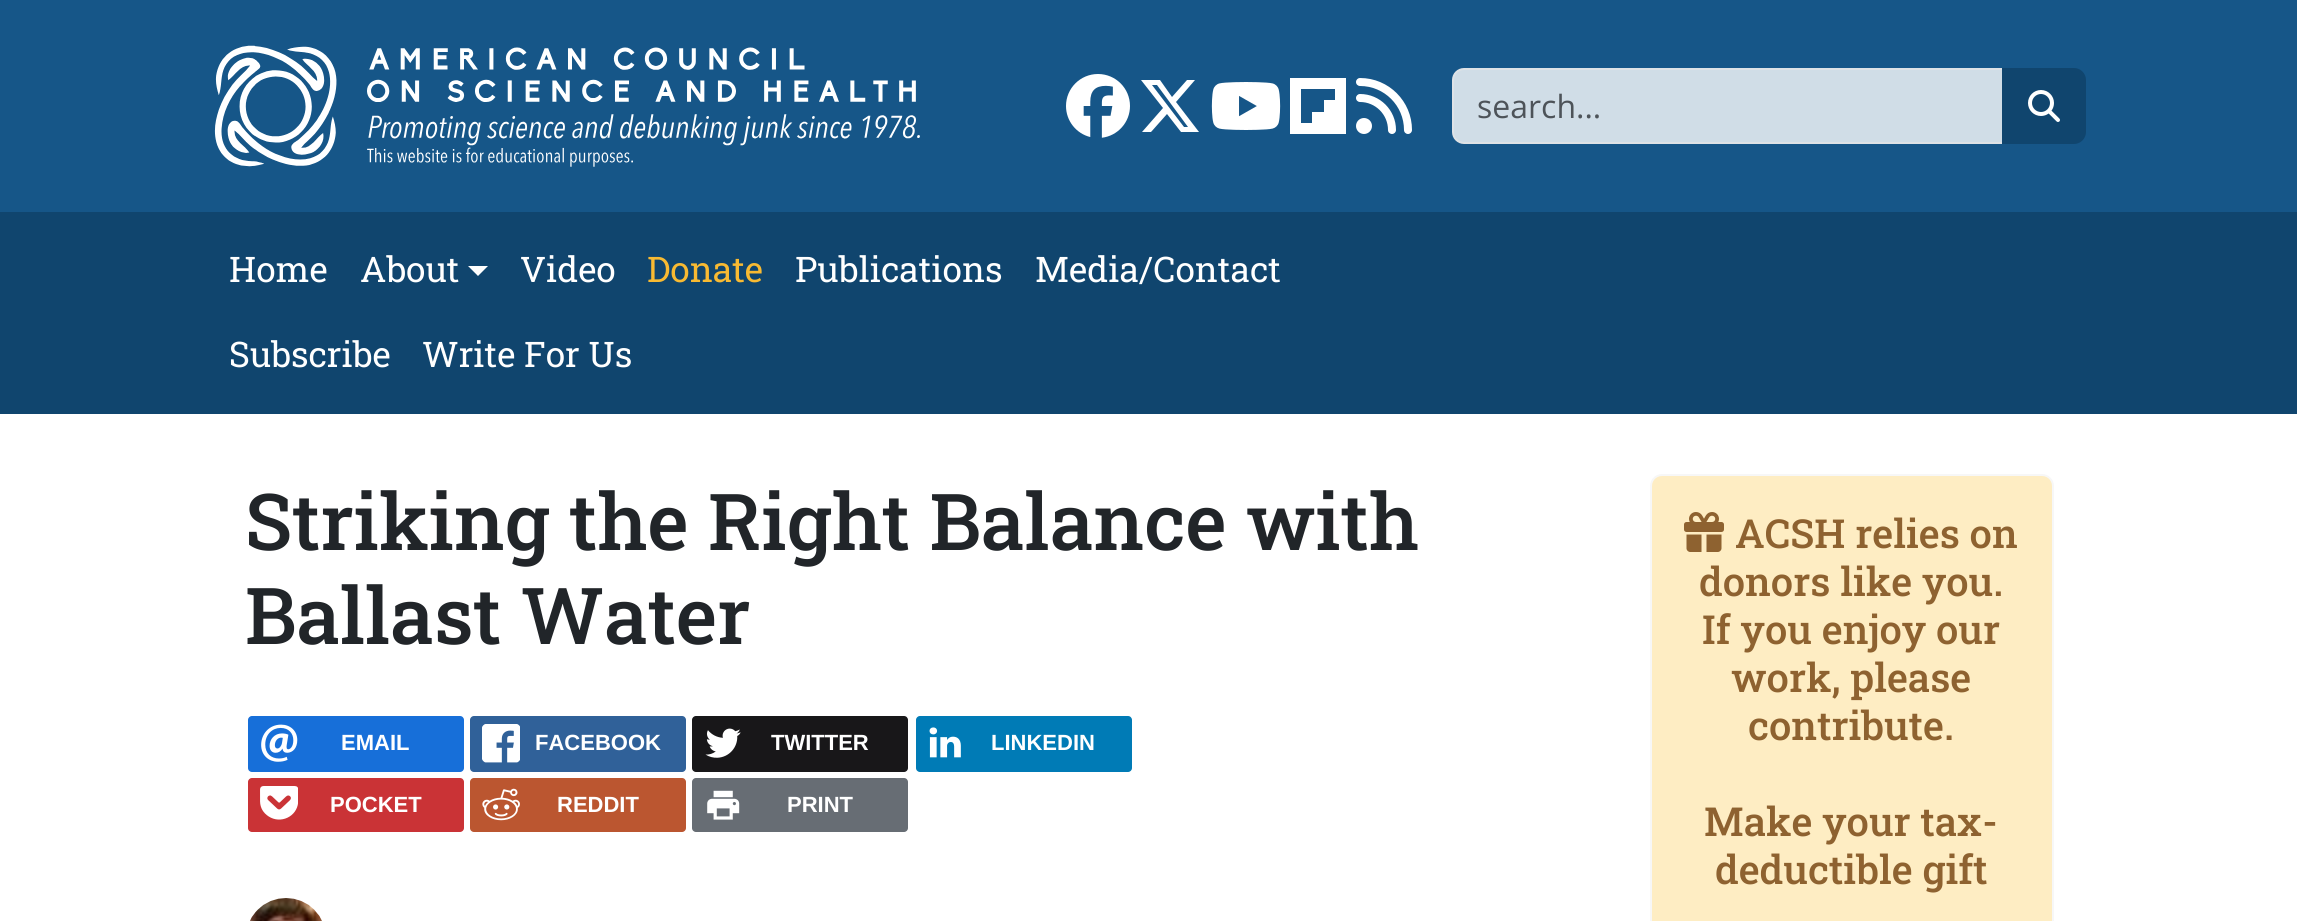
import math
import cairo

surface = cairo.ImageSurface(cairo.FORMAT_RGB24, 2297, 921)
c = cairo.Context(surface)
options = cairo.FontOptions()
options.set_hint_metrics(cairo.HINT_METRICS_OFF)
options.set_hint_style(cairo.HINT_STYLE_NONE)
c.set_font_options(options)
c.set_miter_limit(4)
def C(code):
 c.set_source_rgb(*(v / 255 for v in bytes.fromhex(code[-6:])))
def F(family, size, italic, bold):
 c.select_font_face(family, cairo.FONT_SLANT_ITALIC if italic else cairo.FONT_SLANT_NORMAL, cairo.FONT_WEIGHT_BOLD if bold else cairo.FONT_WEIGHT_NORMAL)
 c.set_font_size(size)
def T(x, y, s):
 c.move_to(x, y)
 c.show_text(s)
def R(x, y, w, h):
 c.rectangle(x, y, w, h)
 c.fill()
def Q(x, y, w, h, r):
 c.new_sub_path()
 for i, (u, v) in enumerate([(x + w - r, y + h - r), (x + r, y + h - r), (x + r, y + r), (x + w - r, y + r)]):
  c.arc(u, v, r, i * math.pi / 2, (i + 1) * math.pi / 2)
 c.close_path()
def I(path, x, y, w, h):
 c.save()
 c.set_source_surface(cairo.ImageSurface.create_from_png(path), x, y)
 c.rectangle(x, y, w, h)
 c.fill()
 c.restore()
C('ffffff')
c.paint()
C('165688')
R(0,0,2297,212)
I('1.png',214,45,706,122)
I('2.png',1066,74,64,64)
C('ffffff')
c.new_path()
c.move_to(1187,80)
c.line_to(1195,80)
c.line_to(1176,102)
c.line_to(1199,132)
c.line_to(1181,132)
c.line_to(1167,114)
c.line_to(1151,132)
c.line_to(1142,132)
c.line_to(1163,108)
c.line_to(1141,80)
c.line_to(1160,80)
c.line_to(1172,97)
c.close_path()
c.move_to(1184,127)
c.line_to(1188,127)
c.line_to(1157,85)
c.line_to(1152,85)
c.close_path()
c.fill()
I('3.png',1211,82,70,48)
c.new_path()
c.move_to(1290,78)
c.line_to(1290,134)
c.line_to(1346,134)
c.line_to(1346,78)
c.close_path()
c.move_to(1335,100)
c.line_to(1324,100)
c.line_to(1324,112)
c.line_to(1312,112)
c.line_to(1312,123)
c.line_to(1301,123)
c.line_to(1301,89)
c.line_to(1335,89)
c.close_path()
c.fill()
I('4.png',1356,78,56,56)
C('d0dde7')
Q(1453,69,572,74,11)
c.fill_preserve()
C('dee2e6')
c.stroke()
F('Open Sans',32,0,0)
C('4d5359')
T(1477,118,'search...')
C('10456e')
c.new_path()
c.move_to(2003,69)
c.line_to(2074,69)
c.curve_to(2080,69,2085,74,2085,80)
c.line_to(2085,132)
c.curve_to(2085,138,2080,143,2074,143)
c.line_to(2003,143)
c.close_path()
c.fill_preserve()
c.stroke()
I('5.png',2028,90,32,32)
R(0,212,2297,202)
F('Roboto Slab',35.25,0,0)
C('ffffff')
T(229,282,'Home')
T(360,282,'About')
c.new_path()
c.move_to(468,266)
c.line_to(488,266)
c.line_to(478,276)
c.close_path()
c.fill()
T(520,282,'Video')
C('f8ba32')
T(647,282,'Donate')
C('ffffff')
T(795,282,'Publications')
T(1035,282,'Media/Contact')
T(229,367,'Subscribe')
T(422,367,'Write For Us')
F('Roboto Slab Medium',78.5,0,0)
C('212529')
T(245,550,'Striking the Right Balance with')
T(245,644,'Ballast Water')
C('176fd9')
Q(248,716,216,56,4)
c.fill()
I('6.png',261,724,37,38)
F('Liberation Sans',22,0,1)
C('ffffff')
T(341,750,'EMAIL')
C('306199')
Q(470,716,216,56,4)
c.fill()
I('7.png',482,724,38,39)
C('ffffff')
T(535,750,'FACEBOOK')
C('181719')
Q(692,716,216,56,4)
c.fill()
I('8.png',705,728,36,30)
C('ffffff')
T(771,750,'TWITTER')
C('007bb6')
Q(916,716,216,56,4)
c.fill()
I('9.png',929,727,32,31)
C('ffffff')
T(991,750,'LINKEDIN')
C('ca3336')
Q(248,778,216,54,4)
c.fill()
I('10.png',260,786,38,34)
C('ffffff')
T(330,812,'POCKET')
C('bb5630')
Q(470,778,216,54,4)
c.fill()
I('11.png',482,788,38,33)
C('ffffff')
T(557,812,'REDDIT')
C('676d74')
Q(692,778,216,54,4)
c.fill()
I('12.png',707,790,33,30)
C('ffffff')
T(787,812,'PRINT')
I('13.png',250,898,72,23)
C('feedc3')
Q(1651,475,402,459,11)
c.fill_preserve()
C('f7f7f7')
c.stroke()
I('14.png',1684,512,40,40)
F('Roboto Slab Medium',40,0,0)
C('8e6230')
T(1735,548,'ACSH relies on')
T(1699,596,'donors like you.')
T(1702,644,'If you enjoy our')
T(1731,692,'work, please')
T(1748,740,'contribute.')
T(1704,836,'Make your tax-')
T(1715,884,'deductible gift')
surface.write_to_png('o.png')
